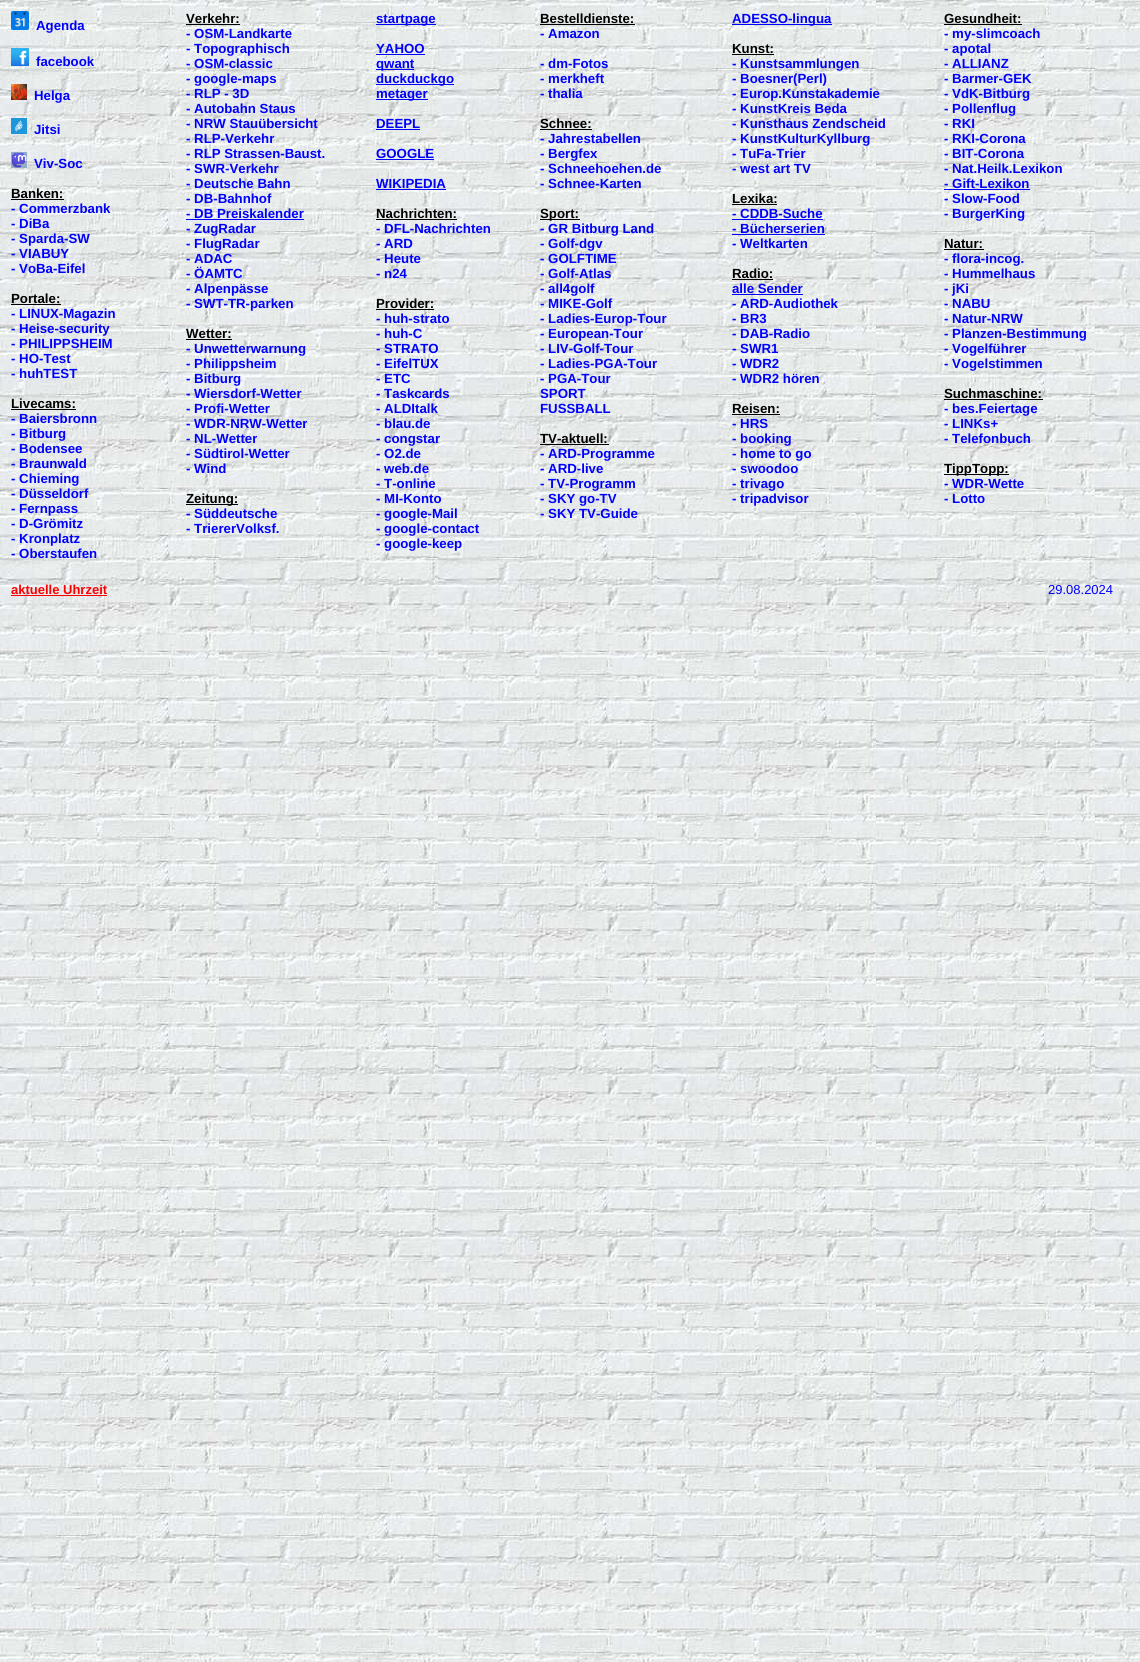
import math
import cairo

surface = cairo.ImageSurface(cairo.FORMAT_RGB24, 1140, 1662)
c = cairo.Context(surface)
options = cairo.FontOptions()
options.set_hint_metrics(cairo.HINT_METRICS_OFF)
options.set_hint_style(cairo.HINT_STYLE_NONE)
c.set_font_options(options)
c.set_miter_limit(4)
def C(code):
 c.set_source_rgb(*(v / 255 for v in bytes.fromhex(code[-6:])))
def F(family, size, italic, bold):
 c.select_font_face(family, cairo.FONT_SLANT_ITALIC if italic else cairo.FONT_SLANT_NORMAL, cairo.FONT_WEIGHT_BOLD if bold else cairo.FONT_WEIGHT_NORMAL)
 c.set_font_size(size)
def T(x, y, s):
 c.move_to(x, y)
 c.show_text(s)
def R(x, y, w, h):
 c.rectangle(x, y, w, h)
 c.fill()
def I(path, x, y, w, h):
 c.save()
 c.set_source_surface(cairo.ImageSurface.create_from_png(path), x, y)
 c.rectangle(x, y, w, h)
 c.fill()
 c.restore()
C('ffffff')
c.paint()
I('1.png',0,0,1140,1662)
I('2.png',11,11,18,19)
F('Liberation Sans',13.25,0,1)
C('0000ff')
T(36,30,'Agenda')
I('3.png',11,48,18,18)
T(36,66,'facebook')
I('4.png',11,84,16,16)
T(34,100,'Helga')
I('5.png',11,118,16,16)
T(34,134,'Jitsi')
I('6.png',11,152,16,16)
T(34,168,'Viv-Soc')
C('000000')
T(11,198,'Banken:')
R(11,199,53,1)
C('0000ff')
T(11,213,'- Commerzbank')
T(11,228,'- DiBa')
T(11,243,'- Sparda-SW')
T(11,258,'- VIABUY')
T(11,273,'- VoBa-Eifel')
C('000000')
T(11,303,'Portale:')
R(11,304,50,1)
C('0000ff')
T(11,318,'- LINUX-Magazin')
T(11,333,'- Heise-security')
T(11,348,'- PHILIPPSHEIM')
T(11,363,'- HO-Test')
T(11,378,'- huhTEST')
C('000000')
T(11,408,'Livecams:')
R(11,409,65,1)
C('0000ff')
T(11,423,'- Baiersbronn')
T(11,438,'- Bitburg')
T(11,453,'- Bodensee')
T(11,468,'- Braunwald')
T(11,483,'- Chieming')
T(11,498,'- Düsseldorf')
T(11,513,'- Fernpass')
T(11,528,'- D-Grömitz')
T(11,543,'- Kronplatz')
T(11,558,'- Oberstaufen')
C('000000')
T(186,23,'Verkehr:')
R(186,24,54,1)
C('0000ff')
T(186,38,'- OSM-Landkarte')
T(186,53,'- Topographisch')
T(186,68,'- OSM-classic')
T(186,83,'- google-maps')
T(186,98,'- RLP - 3D')
T(186,113,'- Autobahn Staus')
T(186,128,'- NRW Stauübersicht')
T(186,143,'- RLP-Verkehr')
T(186,158,'- RLP Strassen-Baust.')
T(186,173,'- SWR-Verkehr')
T(186,188,'- Deutsche Bahn')
T(186,203,'- DB-Bahnhof')
T(186,218,'- DB Preiskalender')
R(186,219,118,1)
T(186,233,'- ZugRadar')
T(186,248,'- FlugRadar')
T(186,263,'- ADAC')
T(186,278,'- ÖAMTC')
T(186,293,'- Alpenpässe')
T(186,308,'- SWT-TR-parken')
C('000000')
T(186,338,'Wetter:')
R(186,339,46,1)
C('0000ff')
T(186,353,'- Unwetterwarnung')
T(186,368,'- Philippsheim')
T(186,383,'- Bitburg')
T(186,398,'- Wiersdorf-Wetter')
T(186,413,'- Profi-Wetter')
T(186,428,'- WDR-NRW-Wetter')
T(186,443,'- NL-Wetter')
T(186,458,'- Südtirol-Wetter')
T(186,473,'- Wind')
C('000000')
R(186,504,52,1)
T(186,503,'Zeitung:')
C('0000ff')
T(186,518,'- Süddeutsche')
T(186,533,'- TriererVolksf.')
R(376,24,60,1)
T(376,23,'startpage')
T(376,53,'YAHOO')
R(376,54,49,1)
R(376,69,38,1)
T(376,68,'qwant')
R(376,84,78,1)
T(376,83,'duckduckgo')
R(376,99,52,1)
T(376,98,'metager')
T(376,128,'DEEPL')
R(376,129,44,1)
T(376,158,'GOOGLE')
R(376,159,58,1)
T(376,188,'WIKIPEDIA')
R(376,189,70,1)
C('000000')
T(376,218,'Nachrichten:')
R(376,219,81,1)
C('0000ff')
T(376,233,'- DFL-Nachrichten')
T(376,248,'- ARD')
T(376,263,'- Heute')
T(376,278,'- n24')
C('000000')
T(376,308,'Provider:')
R(376,309,58,1)
C('0000ff')
T(376,323,'- huh-strato')
T(376,338,'- huh-C')
T(376,353,'- STRATO')
T(376,368,'- EifelTUX')
T(376,383,'- ETC')
T(376,398,'- Taskcards')
T(376,413,'- ALDItalk')
T(376,428,'- blau.de')
T(376,443,'- congstar')
T(376,458,'- O2.de')
T(376,473,'- web.de')
T(376,488,'- T-online')
T(376,503,'- MI-Konto')
T(376,518,'- google-Mail')
T(376,533,'- google-contact')
T(376,548,'- google-keep')
C('000000')
T(540,23,'Bestelldienste:')
R(540,24,95,1)
C('0000ff')
T(540,38,'- Amazon')
T(540,68,'- dm-Fotos')
T(540,83,'- merkheft')
T(540,98,'- thalia')
C('000000')
T(540,128,'Schnee:')
R(540,129,52,1)
C('0000ff')
T(540,143,'- Jahrestabellen')
T(540,158,'- Bergfex')
T(540,173,'- Schneehoehen.de')
T(540,188,'- Schnee-Karten')
C('000000')
R(540,219,40,1)
T(540,218,'Sport:')
C('0000ff')
T(540,233,'- GR Bitburg Land')
T(540,248,'- Golf-dgv')
T(540,263,'- GOLFTIME')
T(540,278,'- Golf-Atlas')
T(540,293,'- all4golf')
T(540,308,'- MIKE-Golf')
T(540,323,'- Ladies-Europ-Tour')
T(540,338,'- European-Tour')
T(540,353,'- LIV-Golf-Tour')
T(540,368,'- Ladies-PGA-Tour')
T(540,383,'- PGA-Tour')
T(540,398,'SPORT')
T(540,413,'FUSSBALL')
C('000000')
T(540,443,'TV-aktuell:')
R(540,444,69,1)
C('0000ff')
T(540,458,'- ARD-Programme')
T(540,473,'- ARD-live')
T(540,488,'- TV-Programm')
T(540,503,'- SKY go-TV')
T(540,518,'- SKY TV-Guide')
R(732,24,100,1)
T(732,23,'ADESSO-lingua')
C('000000')
T(732,53,'Kunst:')
R(732,54,42,1)
C('0000ff')
T(732,68,'- Kunstsammlungen')
T(732,83,'- Boesner(Perl)')
T(732,98,'- Europ.Kunstakademie')
T(732,113,'- KunstKreis Beda')
T(732,128,'- Kunsthaus Zendscheid')
T(732,143,'- KunstKulturKyllburg')
T(732,158,'- TuFa-Trier')
T(732,173,'- west art TV')
C('000000')
T(732,203,'Lexika:')
R(732,204,45,1)
C('0000ff')
T(732,218,'- CDDB-Suche')
R(732,219,91,1)
T(732,233,'- Bücherserien')
R(732,234,93,1)
T(732,248,'- Weltkarten')
C('000000')
T(732,278,'Radio:')
R(732,279,41,1)
C('0000ff')
T(732,293,'alle Sender')
R(732,294,71,1)
T(732,308,'- ARD-Audiothek')
T(732,323,'- BR3')
T(732,338,'- DAB-Radio')
T(732,353,'- SWR1')
T(732,368,'- WDR2')
T(732,383,'- WDR2 hören')
C('000000')
T(732,413,'Reisen:')
R(732,414,48,1)
C('0000ff')
T(732,428,'- HRS')
T(732,443,'- booking')
T(732,458,'- home to go')
T(732,473,'- swoodoo')
T(732,488,'- trivago')
T(732,503,'- tripadvisor')
C('000000')
T(944,23,'Gesundheit:')
R(944,24,78,1)
C('0000ff')
T(944,38,'- my-slimcoach')
T(944,53,'- apotal')
T(944,68,'- ALLIANZ')
T(944,83,'- Barmer-GEK')
T(944,98,'- VdK-Bitburg')
T(944,113,'- Pollenflug')
T(944,128,'- RKI')
T(944,143,'- RKI-Corona')
T(944,158,'- BIT-Corona')
T(944,173,'- Nat.Heilk.Lexikon')
T(944,188,'- Gift-Lexikon')
R(944,189,86,1)
T(944,203,'- Slow-Food')
T(944,218,'- BurgerKing')
C('000000')
T(944,248,'Natur:')
R(944,249,40,1)
C('0000ff')
T(944,263,'- flora-incog.')
T(944,278,'- Hummelhaus')
T(944,293,'- jKi')
T(944,308,'- NABU')
T(944,323,'- Natur-NRW')
T(944,338,'- Planzen-Bestimmung')
T(944,353,'- Vogelführer')
T(944,368,'- Vogelstimmen')
C('000000')
T(944,398,'Suchmaschine:')
R(944,399,99,1)
C('0000ff')
T(944,413,'- bes.Feiertage')
T(944,428,'- LINKs+')
T(944,443,'- Telefonbuch')
C('000000')
R(944,474,65,1)
T(944,473,'TippTopp:')
C('0000ff')
T(944,488,'- WDR-Wette')
T(944,503,'- Lotto')
F('Liberation Sans',13,0,1)
C('ff0000')
T(11,594,'aktuelle Uhrzeit')
R(11,595,96,1)
F('Liberation Sans',13,0,0)
C('0000ff')
T(1048,594,'29.08.2024')
surface.write_to_png('o.png')
